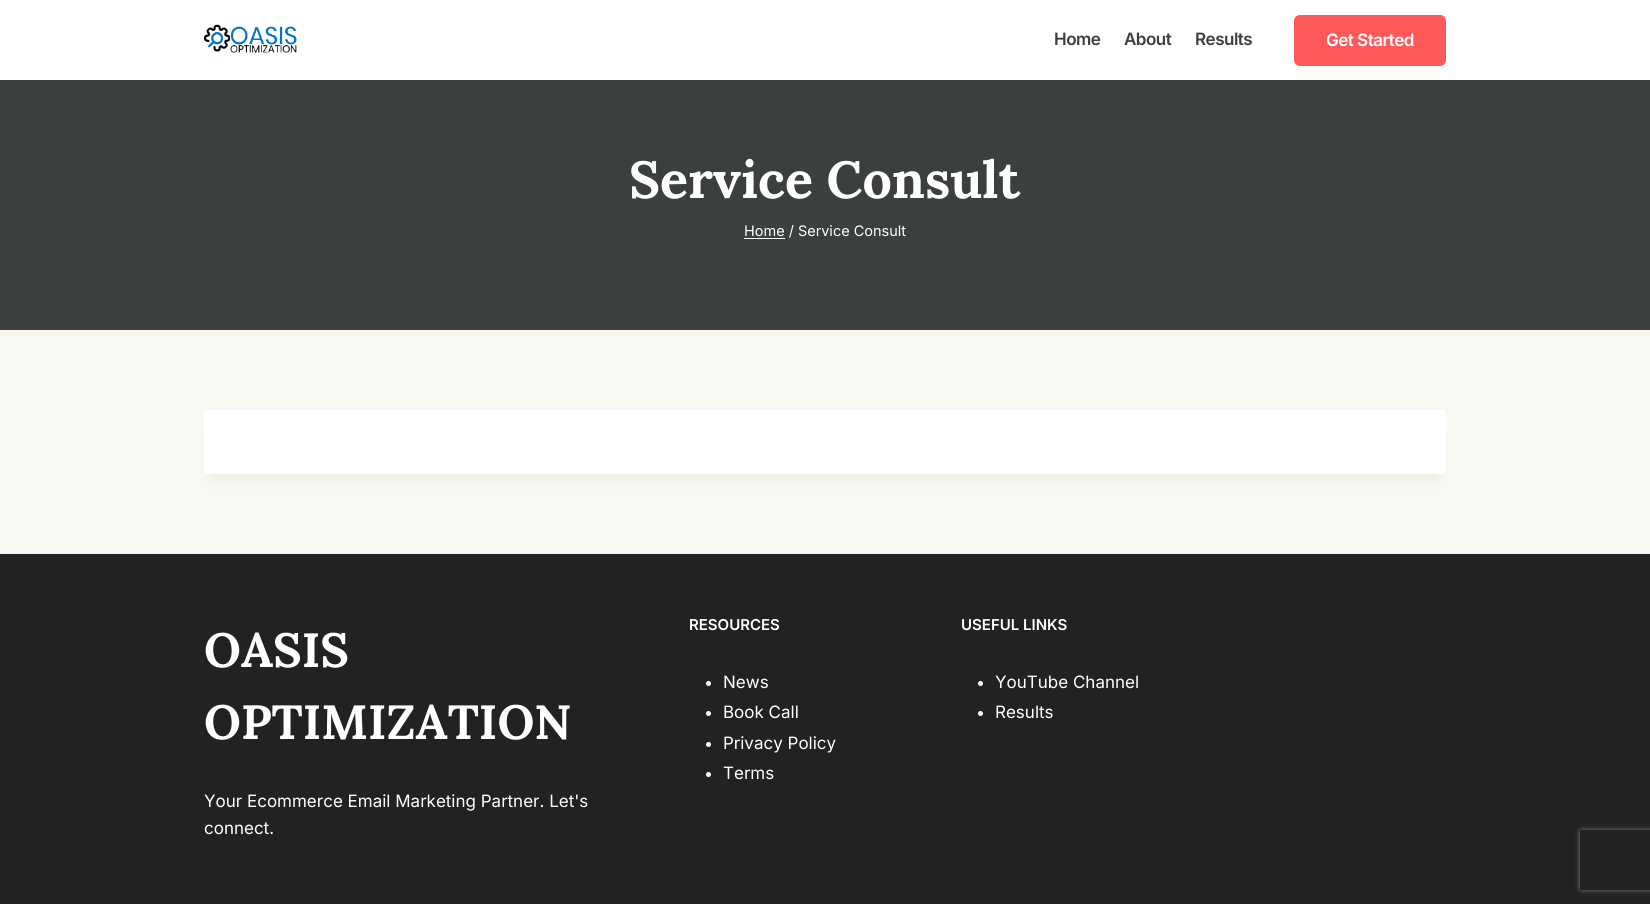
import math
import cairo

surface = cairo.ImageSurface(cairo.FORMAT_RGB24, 1650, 904)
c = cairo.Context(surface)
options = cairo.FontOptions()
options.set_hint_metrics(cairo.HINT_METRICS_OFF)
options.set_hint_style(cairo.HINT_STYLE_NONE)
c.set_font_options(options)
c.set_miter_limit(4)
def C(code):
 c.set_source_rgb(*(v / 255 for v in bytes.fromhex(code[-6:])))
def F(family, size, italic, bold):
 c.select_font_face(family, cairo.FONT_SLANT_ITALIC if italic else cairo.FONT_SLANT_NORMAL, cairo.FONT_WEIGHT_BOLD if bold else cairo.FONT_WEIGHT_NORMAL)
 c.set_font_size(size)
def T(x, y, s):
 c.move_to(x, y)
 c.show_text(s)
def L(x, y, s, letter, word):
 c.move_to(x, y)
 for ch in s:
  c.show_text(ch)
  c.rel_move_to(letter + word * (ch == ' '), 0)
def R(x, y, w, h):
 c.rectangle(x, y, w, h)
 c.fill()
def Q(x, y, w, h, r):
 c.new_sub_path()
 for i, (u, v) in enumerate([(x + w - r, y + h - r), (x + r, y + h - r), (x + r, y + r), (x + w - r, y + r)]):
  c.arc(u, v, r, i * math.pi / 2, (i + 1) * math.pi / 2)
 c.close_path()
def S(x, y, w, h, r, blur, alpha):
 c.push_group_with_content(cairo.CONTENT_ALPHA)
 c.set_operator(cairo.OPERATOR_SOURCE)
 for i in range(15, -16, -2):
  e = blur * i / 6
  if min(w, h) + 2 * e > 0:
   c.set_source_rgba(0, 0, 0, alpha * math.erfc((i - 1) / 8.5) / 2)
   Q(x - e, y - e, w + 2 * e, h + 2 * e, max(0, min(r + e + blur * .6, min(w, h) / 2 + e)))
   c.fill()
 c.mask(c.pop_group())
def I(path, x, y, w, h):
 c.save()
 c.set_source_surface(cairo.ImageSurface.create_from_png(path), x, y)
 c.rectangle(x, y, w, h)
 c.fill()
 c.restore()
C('f9f7f1')
c.paint()
C('ffffff')
R(0,0,1650,80)
I('1.png',204,24,93,29)
F('Inter SemiBold',17,0,0)
C('3b3f3d')
L(1054,45,'Home',-.5,0)
L(1124,45,'About',-.5,0)
L(1195,45,'Results',-.5,0)
C('fd595a')
Q(1294,15,152,51,6)
c.fill()
C('ffffff')
L(1326,46,'Get Started',-.5,0)
C('3b3f3d')
R(0,80,1650,250)
F('Lora',52,0,1)
C('ffffff')
T(629,198,'Service Consult')
F('Inter',14.5,0,0)
T(744,236,'Home / Service Consult')
R(744,238,41,1)
C('000000')
S(214,435,1222,44,0,7.5,.05)
C('ffffff')
Q(204,410,1242,64,4)
c.fill()
C('222222')
R(0,554,1650,350)
F('Lora',48,0,1)
C('ffffff')
T(204,667,'OASIS')
T(204,739,'OPTIMIZATION')
F('Inter',17,0,0)
T(204,807,'Your Ecommerce Email Marketing Partner. Let\'s')
T(204,834,'connect.')
F('Inter SemiBold',15,0,0)
T(689,630,'RESOURCES')
c.new_path()
c.arc(708.5,683.5,2.5,0,2 * math.pi)
c.fill()
F('Inter',17,0,0)
T(723,688,'News')
c.new_path()
c.arc(708.5,713.5,2.5,0,2 * math.pi)
c.fill()
T(723,718,'Book Call')
c.new_path()
c.arc(708.5,744.5,2.5,0,2 * math.pi)
c.fill()
T(723,749,'Privacy Policy')
c.new_path()
c.arc(708.5,774.5,2.5,0,2 * math.pi)
c.fill()
T(723,779,'Terms')
F('Inter SemiBold',15,0,0)
T(961,630,'USEFUL LINKS')
c.new_path()
c.arc(980.5,683.5,2.5,0,2 * math.pi)
c.fill()
F('Inter',17,0,0)
T(995,688,'YouTube Channel')
c.new_path()
c.arc(980.5,713.5,2.5,0,2 * math.pi)
c.fill()
T(995,718,'Results')
c.save()
c.set_fill_rule(cairo.FILL_RULE_EVEN_ODD)
c.new_path()
c.move_to(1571,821)
c.line_to(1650,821)
c.line_to(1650,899)
c.line_to(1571,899)
c.close_path()
c.move_to(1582,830)
c.line_to(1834,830)
c.curve_to(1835,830,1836,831,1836,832)
c.line_to(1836,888)
c.curve_to(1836,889,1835,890,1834,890)
c.line_to(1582,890)
c.curve_to(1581,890,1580,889,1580,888)
c.line_to(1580,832)
c.curve_to(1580,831,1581,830,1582,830)
c.close_path()
c.clip()
C('808080')
S(1580,830,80,60,2,2.5,1)
c.restore()
surface.write_to_png('o.png')
